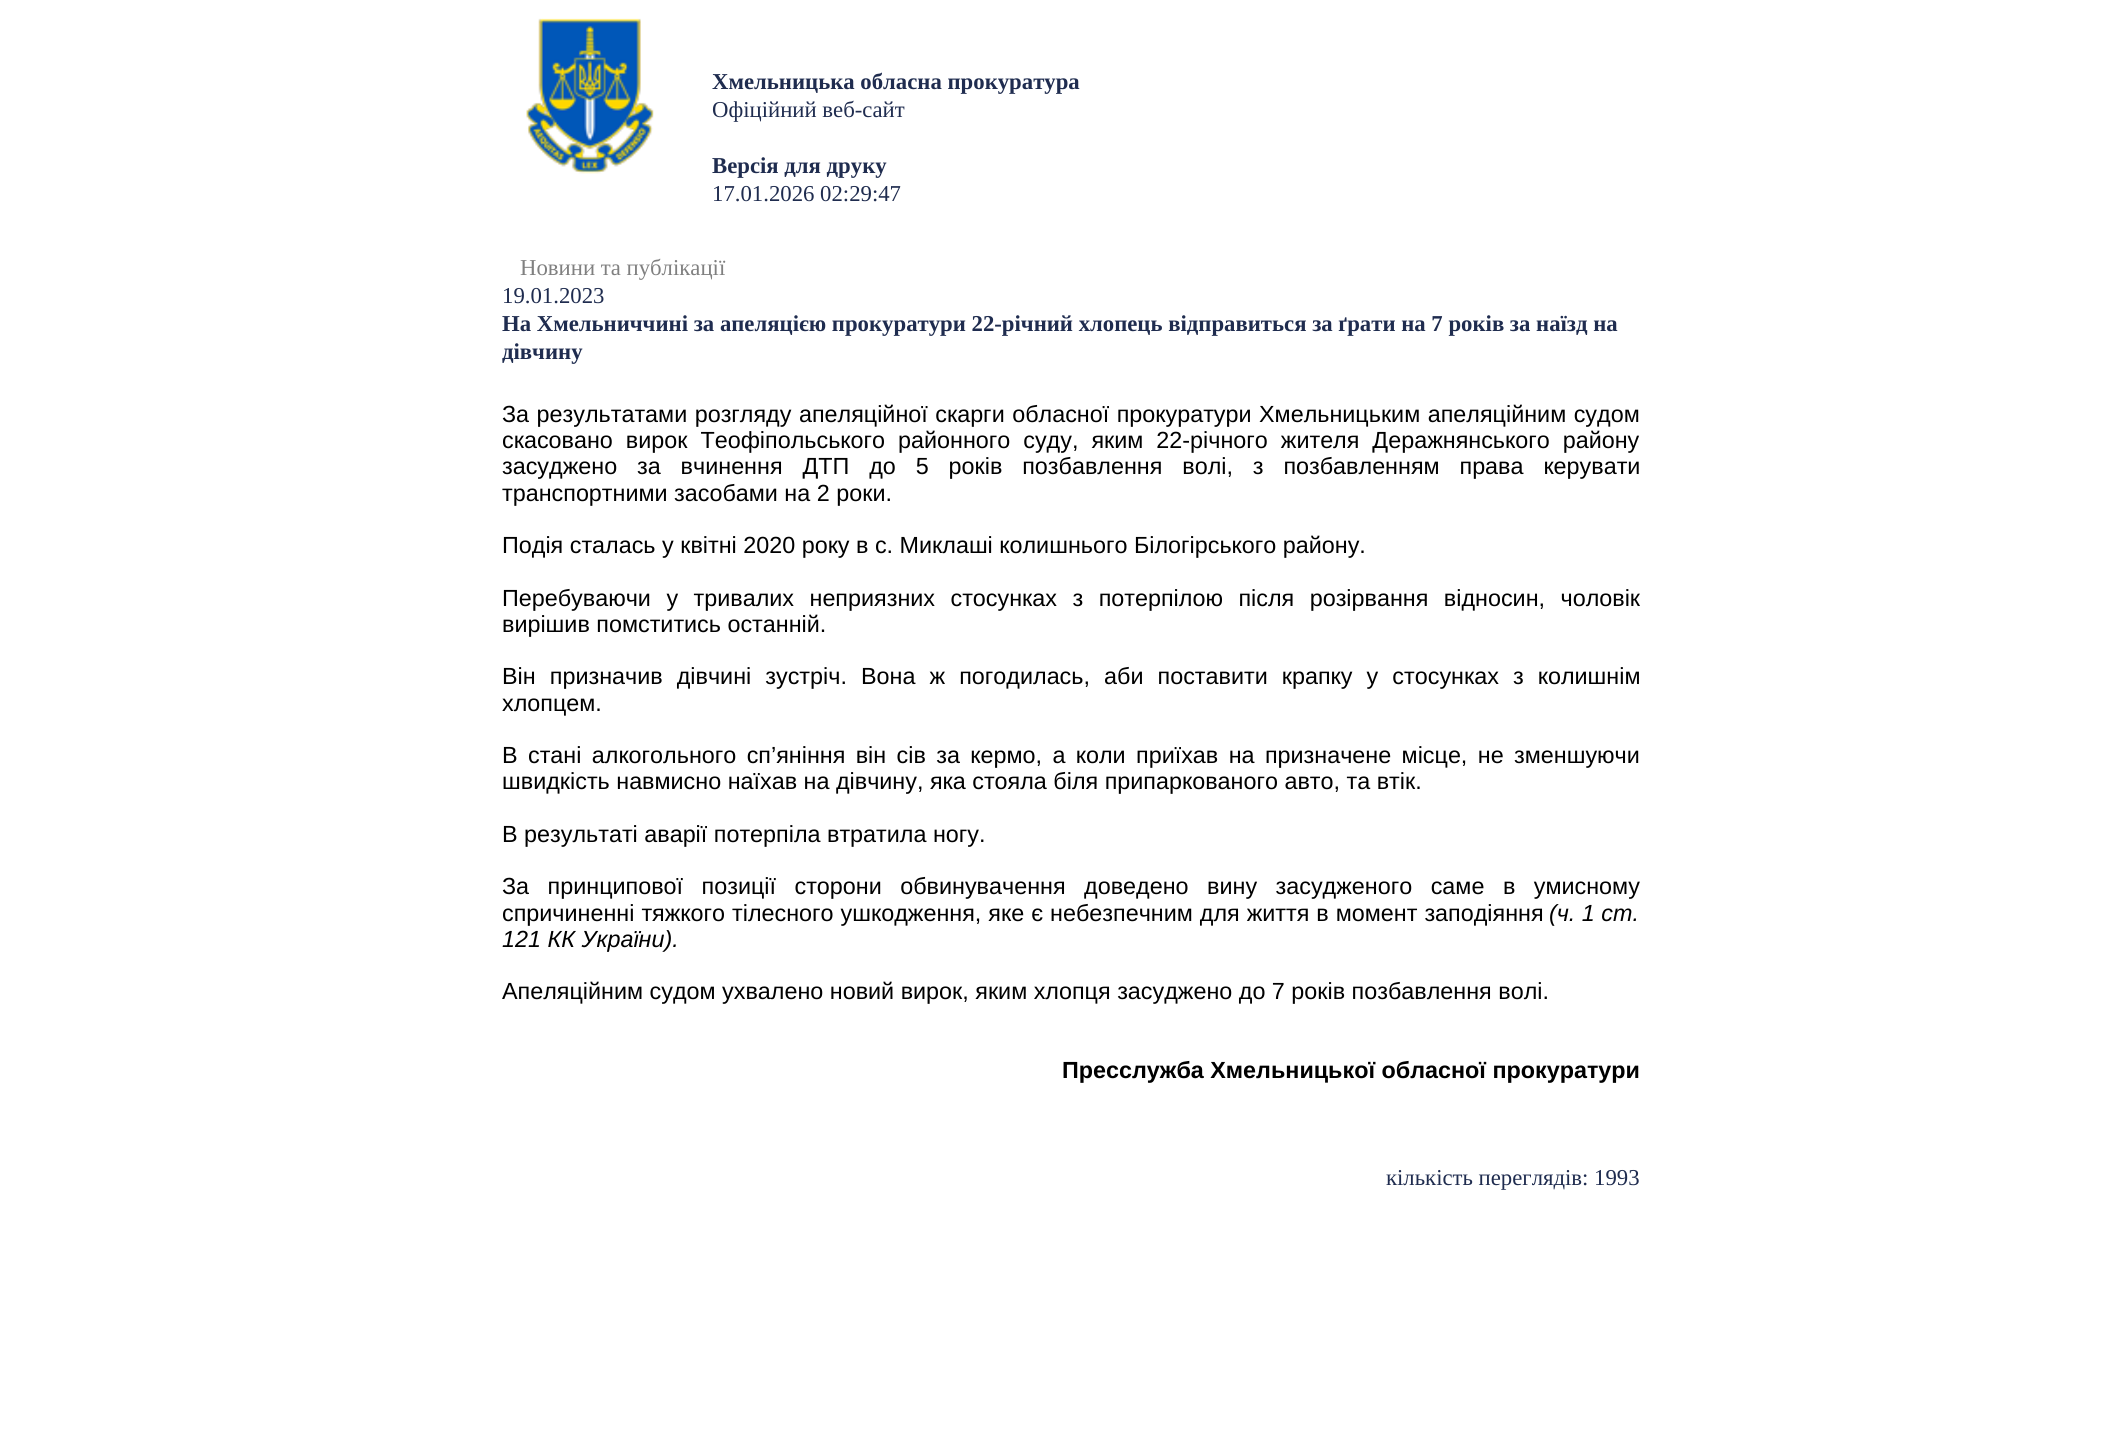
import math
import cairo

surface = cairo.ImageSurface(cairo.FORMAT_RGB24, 2106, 1455)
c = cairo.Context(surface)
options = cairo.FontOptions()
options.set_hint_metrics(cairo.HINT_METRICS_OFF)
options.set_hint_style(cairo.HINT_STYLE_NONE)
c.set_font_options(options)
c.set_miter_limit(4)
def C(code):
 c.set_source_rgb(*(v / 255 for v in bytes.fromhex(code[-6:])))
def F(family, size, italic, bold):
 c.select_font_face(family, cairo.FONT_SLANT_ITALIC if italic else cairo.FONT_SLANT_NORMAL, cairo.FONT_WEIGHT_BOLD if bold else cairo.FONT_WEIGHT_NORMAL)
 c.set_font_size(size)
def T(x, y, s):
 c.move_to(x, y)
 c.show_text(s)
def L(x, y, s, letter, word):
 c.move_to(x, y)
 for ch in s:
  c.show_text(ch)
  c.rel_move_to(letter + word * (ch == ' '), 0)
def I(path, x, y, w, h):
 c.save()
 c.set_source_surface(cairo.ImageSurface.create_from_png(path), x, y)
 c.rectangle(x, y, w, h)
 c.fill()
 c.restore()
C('ffffff')
c.paint()
I('1.png',526,18,128,156)
F('Liberation Serif',22.75,0,1)
C('1f2c4f')
T(712,89,'Хмельницька обласна прокуратура')
F('Liberation Serif',22.75,0,0)
T(712,117,'Офіційний веб-сайт')
F('Liberation Serif',22.75,0,1)
T(712,173,'Версія для друку')
F('Liberation Serif',22.75,0,0)
T(712,201,'17.01.2026 02:29:47')
C('808080')
T(520,275,'Новини та публікації')
C('1f2c4f')
T(502,303,'19.01.2023')
F('Liberation Serif',22.75,0,1)
T(502,331,'На Хмельниччині за апеляцією прокуратури 22-річний хлопець відправиться за ґрати на 7 років за наїзд на')
T(502,359,'дівчину')
F('Liberation Sans',23.35,0,0)
C('000000')
L(502,422,'За результатами розгляду апеляційної скарги обласної прокуратури Хмельницьким апеляційним судом',0,1)
L(502,448,'скасовано вирок Теофіпольського районного суду, яким 22-річного жителя Деражнянського району',0,6.5)
L(502,474,'засуджено за вчинення ДТП до 5 років позбавлення волі, з позбавленням права керувати',0,13.4)
T(502,501,'транспортними засобами на 2 роки.')
T(502,553,'Подія сталась у квітні 2020 року в с. Миклаші колишнього Білогірського району.')
L(502,606,'Перебуваючи у тривалих неприязних стосунках з потерпілою після розірвання відносин, чоловік',0,9)
T(502,632,'вирішив помститись останній.')
L(502,684,'Він призначив дівчині зустріч. Вона ж погодилась, аби поставити крапку у стосунках з колишнім',0,7.6)
T(502,711,'хлопцем.')
L(502,763,'В стані алкогольного сп’яніння він сів за кермо, а коли приїхав на призначене місце, не зменшуючи',0,3.9)
T(502,789,'швидкість навмисно наїхав на дівчину, яка стояла біля припаркованого авто, та втік.')
T(502,842,'В результаті аварії потерпіла втратила ногу.')
L(502,894,'За принципової позиції сторони обвинувачення доведено вину засудженого саме в умисному',0,12)
L(502,921,'спричиненні тяжкого тілесного ушкодження, яке є небезпечним для життя в момент заподіяння',0,.5)
F('Liberation Sans',23.35,1,0)
T(1549,921,'(ч. 1 ст.')
T(502,947,'121 КК України).')
F('Liberation Sans',23.35,0,0)
T(502,999,'Апеляційним судом ухвалено новий вирок, яким хлопця засуджено до 7 років позбавлення волі.')
F('Liberation Sans',23.35,0,1)
T(1062,1078,'Пресслужба Хмельницької обласної прокуратури')
F('Liberation Serif',22.75,0,0)
C('1f2c4f')
T(1386,1185,'кількість переглядів: 1993')
surface.write_to_png('o.png')
